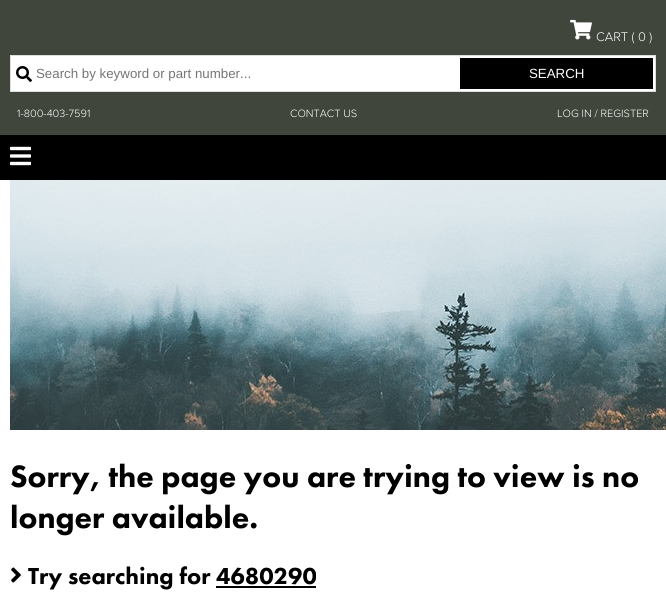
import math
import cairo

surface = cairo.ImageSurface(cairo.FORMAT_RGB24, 666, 599)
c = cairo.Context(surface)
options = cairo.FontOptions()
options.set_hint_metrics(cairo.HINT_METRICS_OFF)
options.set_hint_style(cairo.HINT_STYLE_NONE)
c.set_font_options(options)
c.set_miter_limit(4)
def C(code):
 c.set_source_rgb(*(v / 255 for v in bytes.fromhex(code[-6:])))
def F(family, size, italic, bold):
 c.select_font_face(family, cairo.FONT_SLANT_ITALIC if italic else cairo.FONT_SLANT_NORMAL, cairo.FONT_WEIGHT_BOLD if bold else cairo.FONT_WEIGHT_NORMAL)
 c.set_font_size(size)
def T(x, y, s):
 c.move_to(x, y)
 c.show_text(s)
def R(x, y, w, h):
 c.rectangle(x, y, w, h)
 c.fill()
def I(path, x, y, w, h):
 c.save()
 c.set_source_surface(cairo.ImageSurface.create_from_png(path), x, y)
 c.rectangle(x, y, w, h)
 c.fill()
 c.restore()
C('ffffff')
c.paint()
C('40463c')
R(0,0,666,135)
I('1.png',570,19,22,21)
F('Proxima Nova Light',13,0,0)
C('ffffff')
T(596,41,'CART ( 0 )')
F('Proxima Nova Light',11,0,0)
T(17,117,'1-800-403-7591')
T(290,117,'CONTACT US')
T(557,117,'LOG IN / REGISTER')
C('000000')
R(0,135,666,45)
I('2.png',10,146,21,20)
I('3.png',10,180,656,250)
F('Futura PT Black',32,0,0)
T(10,487,'Sorry, the page you are trying to view is no')
T(10,528,'longer available.')
I('4.png',11,567,10,16)
F('Futura PT Black',24,0,0)
T(28,584,'Try searching for 4680290')
R(216,586,100,2)
C('ffffff')
c.rectangle(10.5,55.5,645,36)
c.fill_preserve()
C('dedede')
c.set_line_width(1)
c.stroke()
I('5.png',16,66,16,16)
F('Liberation Sans',13.3,0,0)
C('757575')
T(36,78,'Search by keyword or part number...')
C('000000')
R(460,58,193,31)
C('ffffff')
T(529,78,'SEARCH')
surface.write_to_png('o.png')
